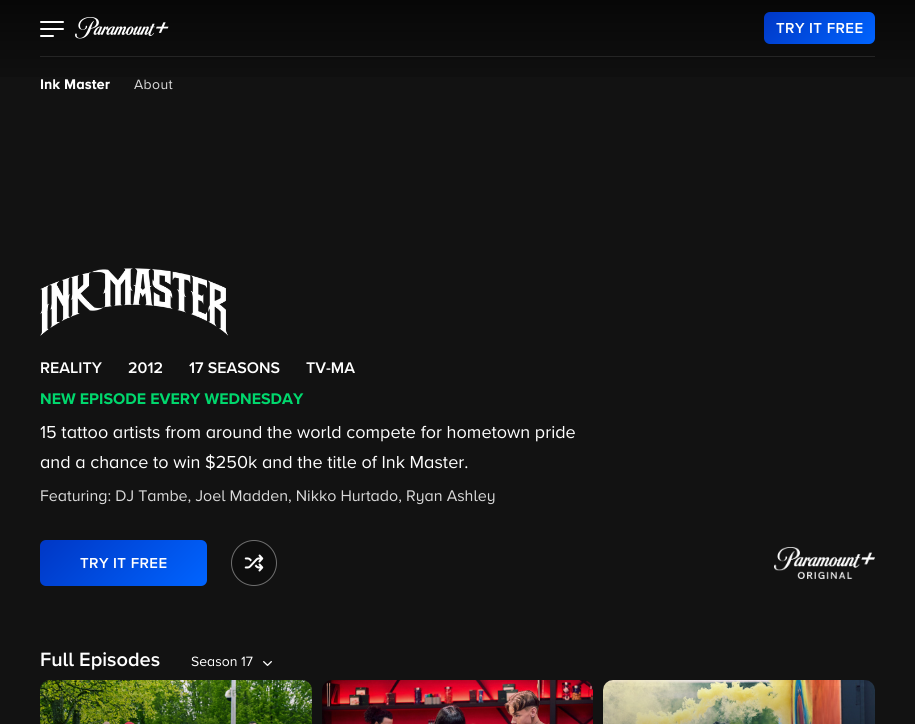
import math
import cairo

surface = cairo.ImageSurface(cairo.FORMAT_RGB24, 915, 724)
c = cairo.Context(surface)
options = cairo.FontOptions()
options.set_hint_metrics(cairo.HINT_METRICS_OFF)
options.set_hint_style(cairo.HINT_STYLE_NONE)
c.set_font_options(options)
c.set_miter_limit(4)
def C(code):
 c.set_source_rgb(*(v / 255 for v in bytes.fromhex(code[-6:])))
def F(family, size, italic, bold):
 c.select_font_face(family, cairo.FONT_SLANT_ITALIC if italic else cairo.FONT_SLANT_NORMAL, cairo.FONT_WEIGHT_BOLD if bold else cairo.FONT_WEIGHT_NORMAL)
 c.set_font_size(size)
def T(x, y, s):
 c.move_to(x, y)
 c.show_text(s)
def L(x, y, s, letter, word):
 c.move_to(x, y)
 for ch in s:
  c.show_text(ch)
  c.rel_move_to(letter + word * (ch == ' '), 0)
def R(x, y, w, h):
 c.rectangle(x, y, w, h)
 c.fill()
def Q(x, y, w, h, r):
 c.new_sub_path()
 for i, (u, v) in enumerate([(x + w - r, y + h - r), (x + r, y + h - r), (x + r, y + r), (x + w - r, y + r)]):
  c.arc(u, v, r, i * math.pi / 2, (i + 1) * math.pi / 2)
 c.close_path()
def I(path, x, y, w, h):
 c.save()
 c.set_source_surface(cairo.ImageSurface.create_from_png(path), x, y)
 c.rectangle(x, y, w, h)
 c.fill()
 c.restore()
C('121212')
c.paint()
gradient = cairo.LinearGradient(458,0,458,100)
gradient.add_color_stop_rgba(0,0.027,0.027,0.027,1)
gradient.add_color_stop_rgba(1,0.071,0.071,0.071,1)
c.set_source(gradient)
R(0,0,915,77)
C('ffffff')
Q(40,21,24,2,1)
c.fill()
Q(40,28,24,2,1)
c.fill()
Q(40,35,14,2,1)
c.fill()
I('1.png',75,17,94,22)
gradient = cairo.LinearGradient(784,-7.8,855,64)
gradient.add_color_stop_rgba(0,0,0.216,0.773,1)
gradient.add_color_stop_rgba(1,0,0.392,1,1)
c.set_source(gradient)
Q(764,12,111,32,6)
c.fill()
F('Proxima Nova',15,0,0)
C('ffffff')
L(776,33,'TRY IT FREE',.4,0)
C('252525')
R(40,56,835,1)
F('Proxima Nova',14,0,1)
C('ffffff')
L(40,89,'Ink Master',.4,0)
F('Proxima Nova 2',14,0,0)
C('dbdbdb')
L(134,89,'About',.4,0)
I('2.png',40,268,189,68)
F('Proxima Nova',16,0,0)
C('ffffff')
T(40,373,'REALITY')
T(128,373,'2012')
T(189,373,'17 SEASONS')
T(306,373,'TV-MA')
F('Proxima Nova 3',16,0,0)
C('00d86d')
T(40,404,'NEW EPISODE EVERY WEDNESDAY')
F('Proxima Nova 2',18,0,0)
C('ffffff')
T(40,438,'15 tattoo artists from around the world compete for hometown pride')
T(40,468,'and a chance to win $250k and the title of Ink Master.')
F('Proxima Nova 2',16,0,0)
C('dbdbdb')
T(40,501,'Featuring: DJ Tambe, Joel Madden, Nikko Hurtado, Ryan Ashley')
gradient = cairo.LinearGradient(70,510,177,616)
gradient.add_color_stop_rgba(0,0,0.216,0.773,1)
gradient.add_color_stop_rgba(1,0,0.392,1,1)
c.set_source(gradient)
Q(40,540,167,46,6)
c.fill()
F('Proxima Nova',15,0,0)
C('ffffff')
L(80,568,'TRY IT FREE',.4,0)
C('0e0e0e')
c.new_path()
c.arc(254,563,23,0,2 * math.pi)
c.fill()
I('3.png',244,554,20,18)
c.arc(254,563,22.5,0,2 * math.pi)
C('6f6f6f')
c.set_line_width(1)
c.stroke()
I('4.png',774,547,101,32)
F('Proxima Nova',20,0,0)
C('ffffff')
T(40,666,'Full Episodes')
F('Proxima Nova 2',14,0,0)
T(191,666,'Season 17')
I('5.png',263,661,9,5)
I('6.png',40,680,272,44)
gradient = cairo.LinearGradient(176,680,176,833)
gradient.add_color_stop_rgba(0,0,0,0,0)
gradient.add_color_stop_rgba(1,0,0,0,.6)
c.set_source(gradient)
R(40,686,272,38)
I('7.png',322,680,271,44)
gradient = cairo.LinearGradient(458,680,458,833)
gradient.add_color_stop_rgba(0,0,0,0,0)
gradient.add_color_stop_rgba(1,0,0,0,.6)
c.set_source(gradient)
R(322,686,271,38)
I('8.png',603,680,272,44)
gradient = cairo.LinearGradient(739,680,739,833)
gradient.add_color_stop_rgba(0,0,0,0,0)
gradient.add_color_stop_rgba(1,0,0,0,.6)
c.set_source(gradient)
R(603,686,272,38)
surface.write_to_png('o.png')
